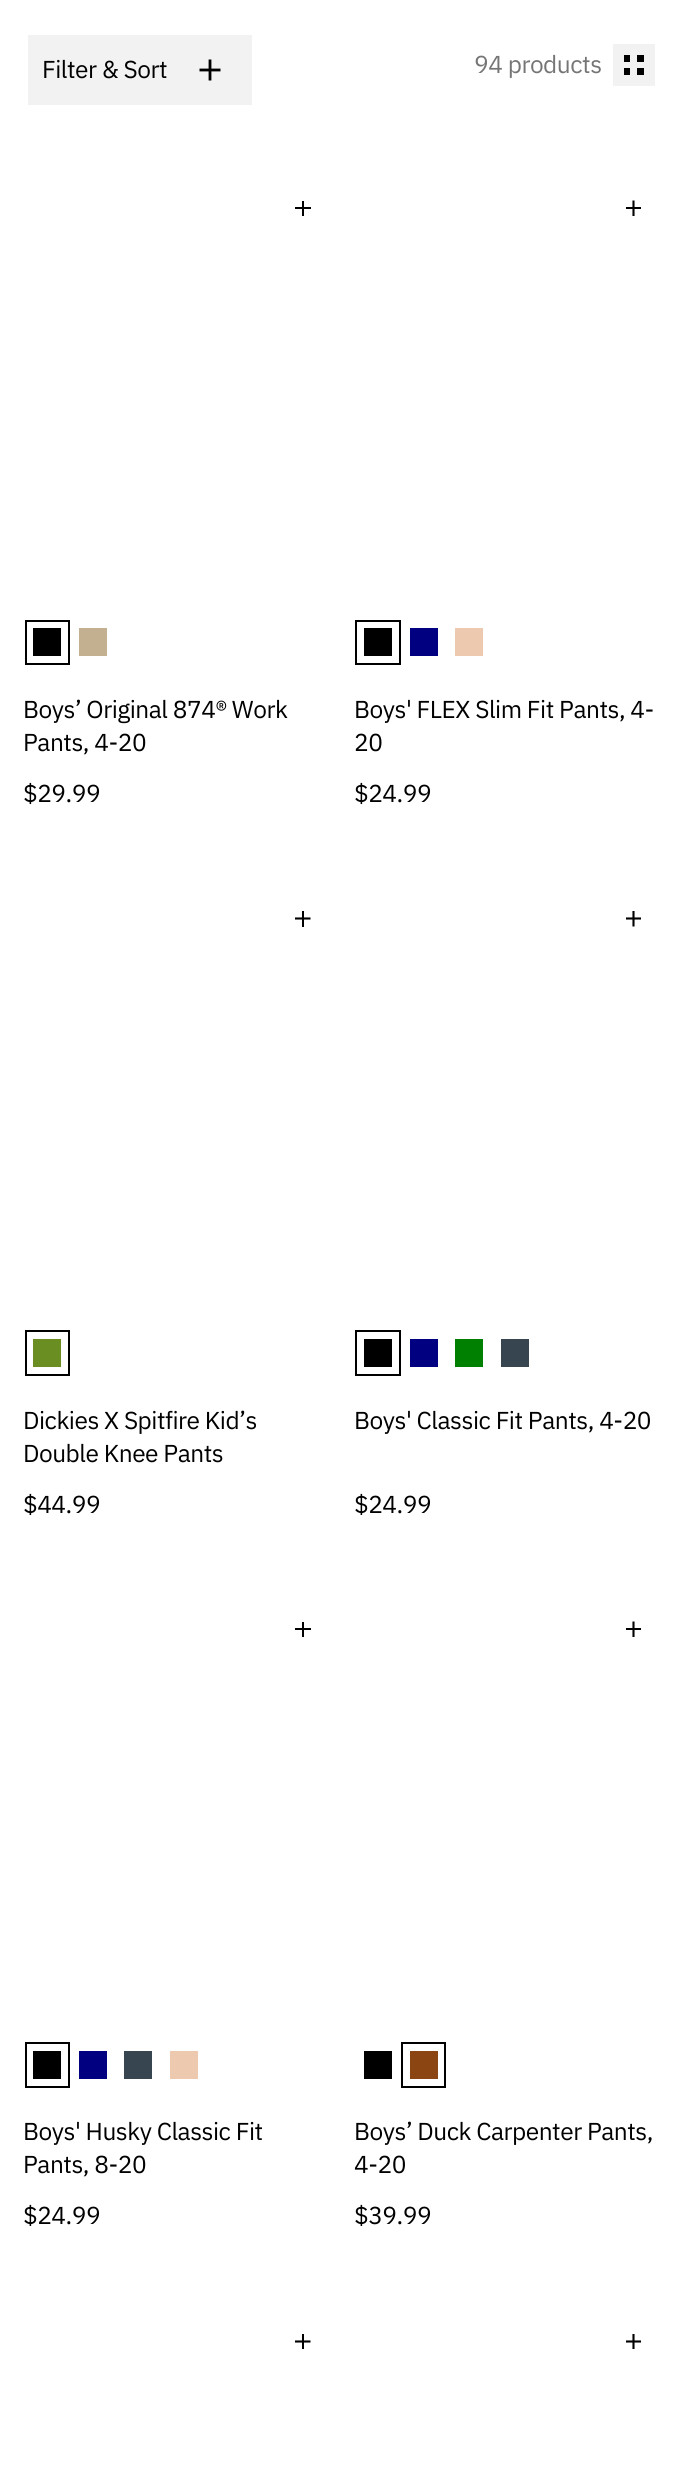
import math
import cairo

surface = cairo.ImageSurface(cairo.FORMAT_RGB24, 681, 2477)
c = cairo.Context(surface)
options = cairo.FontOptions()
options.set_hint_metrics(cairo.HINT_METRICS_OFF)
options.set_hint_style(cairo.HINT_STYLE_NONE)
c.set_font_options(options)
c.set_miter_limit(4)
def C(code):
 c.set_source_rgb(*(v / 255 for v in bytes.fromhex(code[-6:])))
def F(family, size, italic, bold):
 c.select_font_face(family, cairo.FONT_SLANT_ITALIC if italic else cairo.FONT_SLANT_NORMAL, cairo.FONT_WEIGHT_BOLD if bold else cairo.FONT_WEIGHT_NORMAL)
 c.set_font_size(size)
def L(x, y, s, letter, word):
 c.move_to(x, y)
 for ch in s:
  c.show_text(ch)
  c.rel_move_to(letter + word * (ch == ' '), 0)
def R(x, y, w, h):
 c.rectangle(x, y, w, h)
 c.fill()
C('ffffff')
c.paint()
C('f2f2f2')
R(28,35,224,70)
F('IBM Plex Sans',24.5,0,0)
C('000000')
L(42,78,'Filter & Sort',-.5,0)
c.new_path()
c.move_to(220.5,70)
c.line_to(199.5,70)
c.move_to(210,80.5)
c.line_to(210,59.5)
c.set_line_width(2.8)
c.stroke()
C('757575')
L(474,73,'94 products',-.5,0)
C('f2f2f2')
R(613,44,42,42)
C('000000')
R(624,55,6,7)
R(637,55,7,7)
R(624,68,6,7)
R(637,68,7,7)
R(295,207,16,2)
R(302,201,2,15)
c.rectangle(26,621,43,43)
c.set_line_width(2)
c.stroke()
R(33,628,28,28)
C('c3b091')
R(79,628,28,28)
C('000000')
L(23,718,'Boys’ Original 874® Work',-.5,0)
L(23,751,'Pants, 4-20',-.5,0)
L(23,802,'$29.99',-.5,0)
R(626,207,15,2)
c.new_path()
c.move_to(633.5,216)
c.line_to(633.5,200.5)
c.set_line_width(2.1)
c.stroke()
c.rectangle(356,621,44,43)
c.set_line_width(2)
c.stroke()
R(364,628,28,28)
C('000080')
R(410,628,28,28)
C('edc9af')
R(455,628,28,28)
C('000000')
L(354,718,'Boys\' FLEX Slim Fit Pants, 4-',-.5,0)
L(354,751,'20',-.5,0)
L(354,802,'$24.99',-.5,0)
c.new_path()
c.move_to(310.5,918.5)
c.line_to(295,918.5)
c.set_line_width(2.1)
c.stroke()
R(302,911,2,16)
c.rectangle(26,1331,43,44)
c.set_line_width(2)
c.stroke()
C('6b8e23')
R(33,1339,28,28)
C('000000')
L(23,1429,'Dickies X Spitfire Kid’s',-.5,0)
L(23,1462,'Double Knee Pants',-.5,0)
L(23,1513,'$44.99',-.5,0)
c.new_path()
c.move_to(641,918.5)
c.line_to(626,918.5)
c.move_to(633.5,926.5)
c.line_to(633.5,911)
c.set_line_width(2.1)
c.stroke()
c.rectangle(356,1331,44,44)
c.set_line_width(2)
c.stroke()
R(364,1339,28,28)
C('000080')
R(410,1339,28,28)
C('008000')
R(455,1339,28,28)
C('36454f')
R(501,1339,28,28)
C('000000')
L(354,1429,'Boys\' Classic Fit Pants, 4-20',-.5,0)
L(354,1513,'$24.99',-.5,0)
R(295,1628,16,2)
R(302,1622,2,15)
c.rectangle(26,2043,43,44)
c.stroke()
R(33,2051,28,28)
C('000080')
R(79,2051,28,28)
C('36454f')
R(124,2051,28,28)
C('edc9af')
R(170,2051,28,28)
C('000000')
L(23,2140,'Boys\' Husky Classic Fit',-.5,0)
L(23,2173,'Pants, 8-20',-.5,0)
L(23,2224,'$24.99',-.5,0)
R(626,1628,15,2)
c.new_path()
c.move_to(633.5,1637)
c.line_to(633.5,1621.5)
c.set_line_width(2.1)
c.stroke()
R(364,2051,28,28)
c.rectangle(402,2043,43,44)
c.set_line_width(2)
c.stroke()
C('8b4513')
R(410,2051,28,28)
C('000000')
L(354,2140,'Boys’ Duck Carpenter Pants,',-.5,0)
L(354,2173,'4-20',-.5,0)
L(354,2224,'$39.99',-.5,0)
c.new_path()
c.move_to(310.5,2341.5)
c.line_to(295,2341.5)
c.set_line_width(2.1)
c.stroke()
R(302,2334,2,15)
c.new_path()
c.move_to(641,2341.5)
c.line_to(626,2341.5)
c.move_to(633.5,2349)
c.line_to(633.5,2334)
c.stroke()
surface.write_to_png('o.png')
